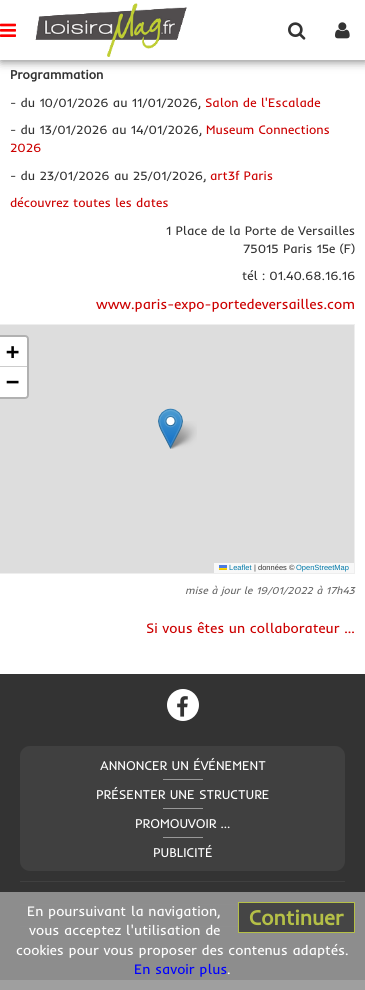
import math
import cairo

surface = cairo.ImageSurface(cairo.FORMAT_RGB24, 365, 990)
c = cairo.Context(surface)
options = cairo.FontOptions()
options.set_hint_metrics(cairo.HINT_METRICS_OFF)
options.set_hint_style(cairo.HINT_STYLE_NONE)
c.set_font_options(options)
c.set_miter_limit(4)
def C(code):
 c.set_source_rgb(*(v / 255 for v in bytes.fromhex(code[-6:])))
def F(family, size, italic, bold):
 c.select_font_face(family, cairo.FONT_SLANT_ITALIC if italic else cairo.FONT_SLANT_NORMAL, cairo.FONT_WEIGHT_BOLD if bold else cairo.FONT_WEIGHT_NORMAL)
 c.set_font_size(size)
def T(x, y, s):
 c.move_to(x, y)
 c.show_text(s)
def R(x, y, w, h):
 c.rectangle(x, y, w, h)
 c.fill()
def Q(x, y, w, h, r):
 c.new_sub_path()
 for i, (u, v) in enumerate([(x + w - r, y + h - r), (x + r, y + h - r), (x + r, y + r), (x + w - r, y + r)]):
  c.arc(u, v, r, i * math.pi / 2, (i + 1) * math.pi / 2)
 c.close_path()
def S(x, y, w, h, r, blur, alpha):
 c.push_group_with_content(cairo.CONTENT_ALPHA)
 c.set_operator(cairo.OPERATOR_SOURCE)
 for i in range(15, -16, -2):
  e = blur * i / 6
  if min(w, h) + 2 * e > 0:
   c.set_source_rgba(0, 0, 0, alpha * math.erfc((i - 1) / 8.5) / 2)
   Q(x - e, y - e, w + 2 * e, h + 2 * e, max(0, min(r + e + blur * .6, min(w, h) / 2 + e)))
   c.fill()
 c.mask(c.pop_group())
def I(path, x, y, w, h):
 c.save()
 c.set_source_surface(cairo.ImageSurface.create_from_png(path), x, y)
 c.rectangle(x, y, w, h)
 c.fill()
 c.restore()
C('e8e8e8')
c.paint()
C('ffffff')
R(0,60,365,614)
C('777777')
S(1,1,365,60,0,5,1)
C('ffffff')
R(0,0,365,60)
I('1.png',0,23,16,14)
I('2.png',35,3,152,54)
I('3.png',288,22,18,18)
I('4.png',335,22,15,17)
F('Inder',12.6,0,1)
C('333333')
T(10,79,'Programmation')
F('Inder',12.6,0,0)
T(10,107,'- du 10/01/2026 au 11/01/2026,')
C('cc0000')
T(205,107,'Salon de l\'Escalade')
C('333333')
T(10,134,'- du 13/01/2026 au 14/01/2026,')
C('cc0000')
T(206,134,'Museum Connections')
T(10,152,'2026')
C('333333')
T(10,180,'- du 23/01/2026 au 25/01/2026,')
C('cc0000')
T(210,180,'art3f Paris')
T(10,207,'découvrez toutes les dates')
C('333333')
T(166,235,'1 Place de la Porte de Versailles')
T(243,253,'75015 Paris 15e (F)')
T(242,280,'tél : 01.40.68.16.16')
F('Inder',14,0,0)
C('cc0000')
T(96,309,'www.paris-expo-portedeversailles.com')
C('dddddd')
R(0,325,354,248)
C('eeeeee')
R(0,324,355,1)
R(354,324,1,250)
R(0,573,355,1)
Q(-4,336,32,62,3)
C('b1b1b1')
c.stroke()
C('ffffff')
c.new_path()
c.move_to(0,337)
c.line_to(25,337)
c.curve_to(26,337,27,338,27,339)
c.line_to(27,367)
c.line_to(0,367)
c.close_path()
c.fill()
C('cccccc')
R(0,366,27,1)
F('DejaVu Sans Mono',22,0,1)
C('000000')
T(6,359,'+')
C('ffffff')
c.new_path()
c.move_to(0,367)
c.line_to(27,367)
c.line_to(27,395)
c.curve_to(27,396,26,397,25,397)
c.line_to(0,397)
c.close_path()
c.fill()
C('000000')
T(6,389,'−')
C('f8f8f8')
R(214,563,140,10)
I('5.png',219,565,8,5)
F('Liberation Sans',7.5,0,0)
C('0078a8')
T(229,570,'Leaflet')
C('333333')
T(254,570,'| données ©')
C('0078a8')
T(296,570,'OpenStreetMap')
I('7.png',168,421,29,28)
I('6.png',158,408,25,41)
F('Inder',10.5,1,0)
C('666666')
T(185,594,'mise à jour le 19/01/2022 à 17h43')
F('Inder',14,0,0)
C('cc0000')
T(146,633,'Si vous êtes un collaborateur ...')
C('333333')
R(0,674,365,306)
C('ffffff')
c.new_path()
c.arc(183,705,15,0,2 * math.pi)
c.fill_preserve()
c.stroke()
I('8.png',177,696,11,21)
C('404040')
Q(20,746,325,125,10)
c.fill()
F('Inder',13,0,0)
C('ffffff')
T(100,770,'ANNONCER UN ÉVÉNEMENT')
C('999999')
R(163,779,40,1)
C('ffffff')
T(96,799,'PRÉSENTER UNE STRUCTURE')
C('999999')
R(163,808,40,1)
C('ffffff')
T(135,828,'PROMOUVOIR ...')
C('999999')
R(163,837,40,1)
C('ffffff')
T(153,857,'PUBLICITÉ')
C('404040')
R(20,881,325,1)
R(20,904,218,1)
R(20,926,218,1)
R(20,949,325,1)
c.set_source_rgba(0.592,0.592,0.592,0.9)
R(0,892,365,98)
F('Inder',14,0,0)
C('ffffff')
T(27,916,'En poursuivant la navigation,')
C('454545')
c.rectangle(238.5,902.5,116,30)
c.fill_preserve()
C('b5c047')
c.set_line_width(1)
c.stroke()
F('Inder',21,0,1)
T(249,925,'Continuer')
F('Inder',14,0,0)
C('ffffff')
T(29,935,'vous acceptez l\'utilisation de')
T(16,955,'cookies pour vous proposer des contenus adaptés.')
C('0000ff')
T(134,974,'En savoir plus')
C('ffffff')
T(227,974,'.')
surface.write_to_png('o.png')
